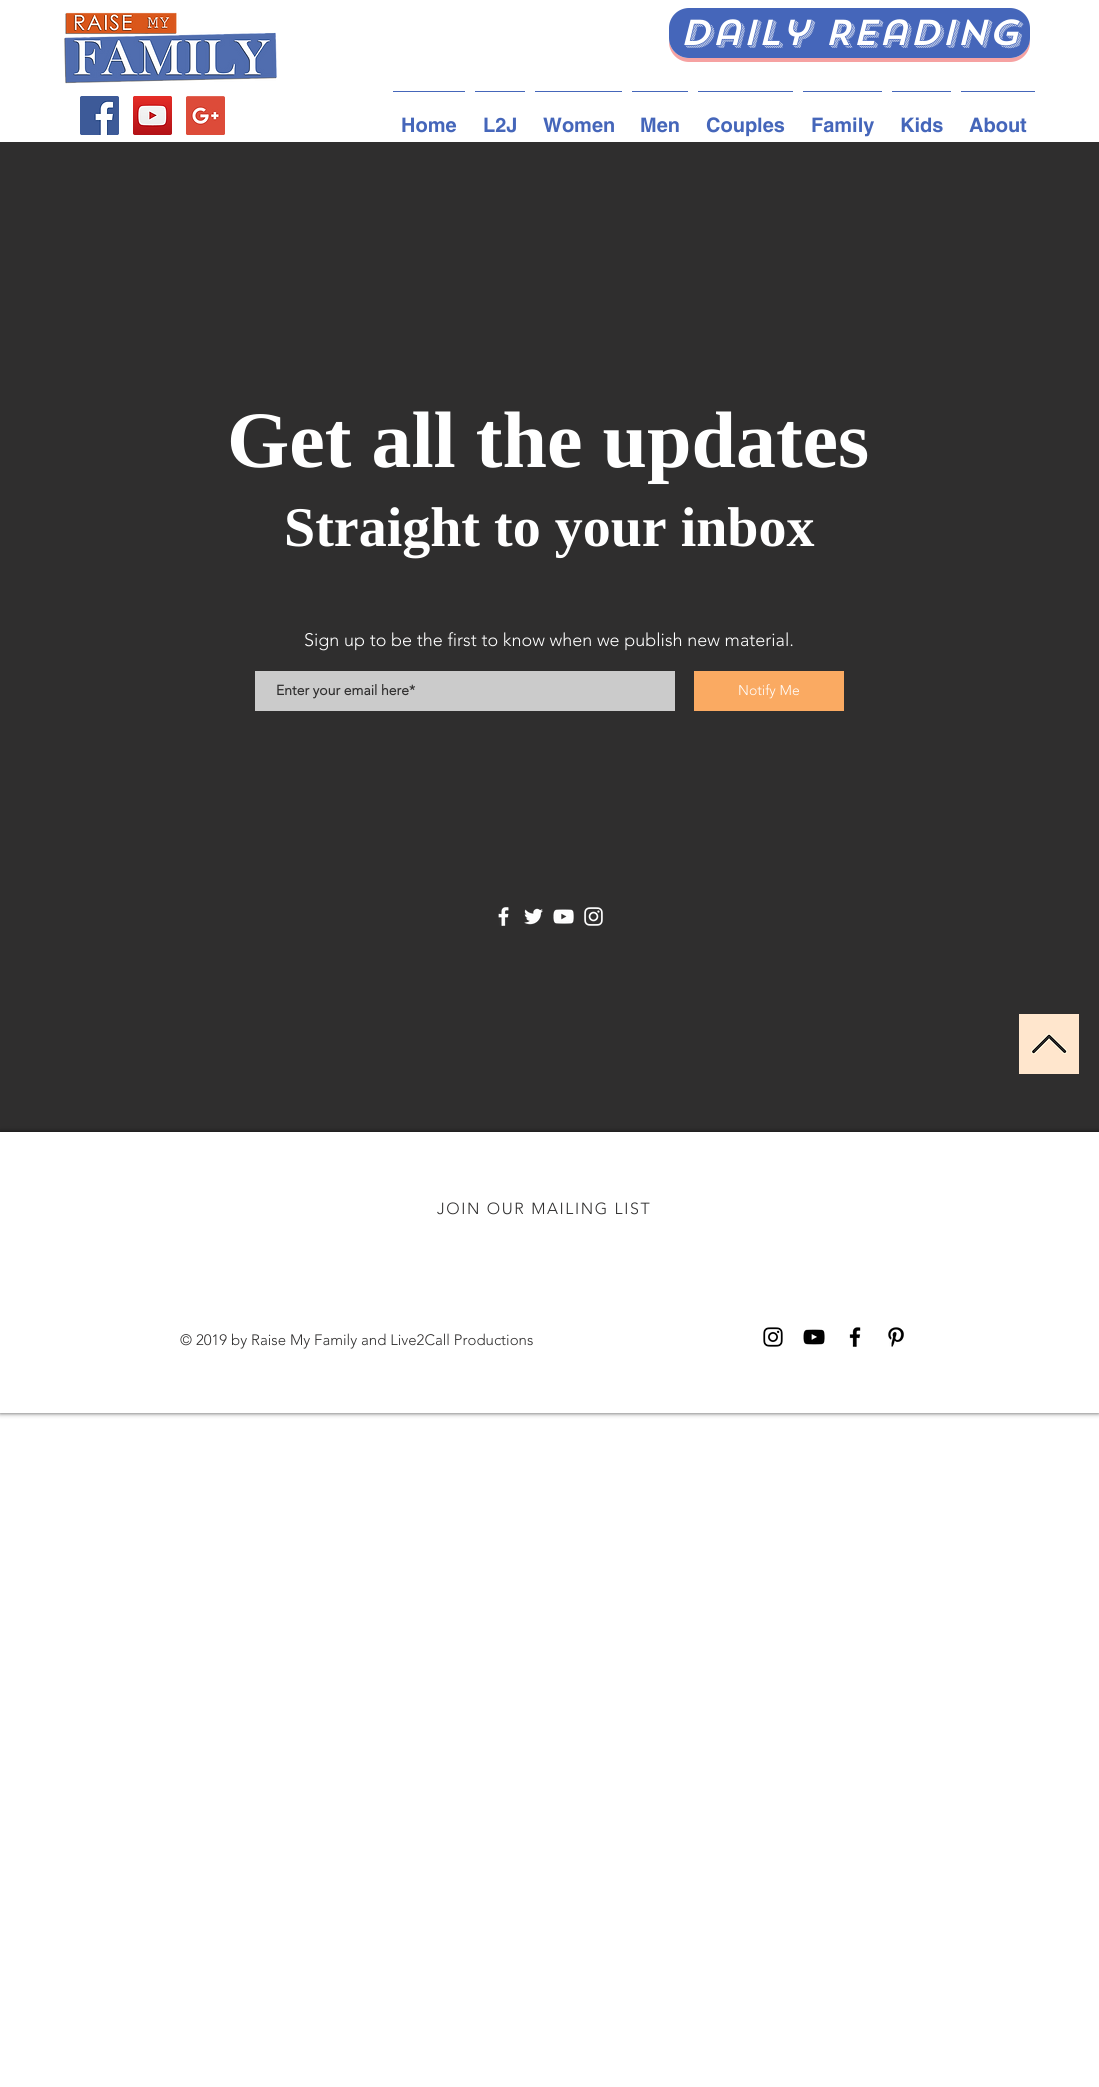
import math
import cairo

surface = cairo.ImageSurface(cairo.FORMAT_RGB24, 1099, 2087)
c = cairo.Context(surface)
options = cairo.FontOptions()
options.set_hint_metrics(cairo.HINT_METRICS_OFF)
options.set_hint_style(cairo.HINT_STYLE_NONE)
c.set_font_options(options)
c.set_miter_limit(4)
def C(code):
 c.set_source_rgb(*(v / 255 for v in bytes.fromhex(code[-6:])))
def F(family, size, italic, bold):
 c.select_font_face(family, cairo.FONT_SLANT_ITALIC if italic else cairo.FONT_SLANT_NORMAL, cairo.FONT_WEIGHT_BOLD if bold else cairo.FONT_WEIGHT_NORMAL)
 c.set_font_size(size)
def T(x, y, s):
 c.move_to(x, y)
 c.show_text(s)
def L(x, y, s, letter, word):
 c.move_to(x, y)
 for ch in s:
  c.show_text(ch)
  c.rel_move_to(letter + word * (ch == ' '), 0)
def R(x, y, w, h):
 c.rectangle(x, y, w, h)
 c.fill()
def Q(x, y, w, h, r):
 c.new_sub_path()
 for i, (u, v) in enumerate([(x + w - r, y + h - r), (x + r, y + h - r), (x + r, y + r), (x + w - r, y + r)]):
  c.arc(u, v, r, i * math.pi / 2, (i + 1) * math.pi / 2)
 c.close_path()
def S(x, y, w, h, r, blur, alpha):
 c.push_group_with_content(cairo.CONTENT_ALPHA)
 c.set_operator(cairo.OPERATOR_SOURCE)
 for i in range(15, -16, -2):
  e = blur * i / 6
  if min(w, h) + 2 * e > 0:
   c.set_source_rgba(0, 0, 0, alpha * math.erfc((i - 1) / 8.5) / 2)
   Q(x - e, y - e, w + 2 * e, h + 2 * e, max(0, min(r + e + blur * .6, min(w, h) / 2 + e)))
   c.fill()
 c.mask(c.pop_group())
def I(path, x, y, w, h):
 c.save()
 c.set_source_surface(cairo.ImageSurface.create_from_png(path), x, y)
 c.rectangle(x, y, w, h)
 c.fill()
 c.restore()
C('ffffff')
c.paint()
I('1.png',64,12,213,72)
C('f6a2a2')
c.new_path()
c.move_to(669,38)
c.line_to(669,42)
c.curve_to(669,53,678,62,689,62)
c.line_to(1010,62)
c.curve_to(1021,62,1030,53,1030,42)
c.line_to(1030,38)
c.curve_to(1030,49,1021,58,1010,58)
c.line_to(689,58)
c.curve_to(678,58,669,49,669,38)
c.close_path()
c.fill()
C('4566ba')
Q(669,8,361,50,20)
c.fill()
F('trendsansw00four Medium',36,1,0)
C('ffffff')
T(679,45,'Daily Reading')
I('2.png',80,96,39,39)
I('3.png',133,96,39,39)
I('4.png',186,96,39,39)
C('4566ba')
R(393,91,72,1)
F('helvetica',20,0,1)
T(401,132,'Home')
R(475,91,50,1)
T(483,132,'L2J')
R(535,91,87,1)
T(543,132,'Women')
R(632,91,56,1)
T(640,132,'Men')
R(698,91,95,1)
T(706,132,'Couples')
R(803,91,79,1)
T(811,132,'Family')
R(892,91,59,1)
T(900,132,'Kids')
R(961,91,74,1)
T(969,132,'About')
C('2f2e2e')
R(0,142,1099,990)
F('Liberation Serif',80,0,1)
C('ffffff')
T(227,467,'Get all the updates')
F('Liberation Serif',56,0,1)
T(284,546,'Straight to your inbox')
F('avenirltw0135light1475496 Light',18,0,0)
T(304,646,'Sign up to be the first to know when we publish new material.')
C('cbcbcb')
R(255,671,420,40)
F('avenirltw0135light1475496',14,0,1)
C('2f2e2e')
T(276,695,'Enter your email here*')
C('faaa62')
R(694,671,150,40)
F('avenirltw0135light1475496 Light',14,0,0)
C('ffffff')
T(738,695,'Notify Me')
I('5.png',498,907,11,19)
I('6.png',524,908,19,17)
I('7.png',553,909,21,15)
I('8.png',584,907,19,19)
I('9.png',1019,1014,60,60)
c.save()
c.set_fill_rule(cairo.FILL_RULE_EVEN_ODD)
c.new_path()
c.move_to(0,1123)
c.line_to(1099,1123)
c.line_to(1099,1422)
c.line_to(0,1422)
c.close_path()
c.move_to(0,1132)
c.line_to(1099,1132)
c.line_to(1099,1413)
c.line_to(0,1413)
c.close_path()
c.clip()
C('000000')
S(0,1132,1099,281,0,2.5,.7)
c.restore()
F('avenirltw0135light1475496 Light',16,0,0)
C('2f2e2e')
L(437,1214,'JOIN OUR MAILING LIST',1.6,0)
F('avenirltw0135light1475496 Light',15,0,0)
T(180,1345,'© 2019 by Raise My Family and Live2Call Productions')
I('10.png',763,1327,20,20)
I('11.png',803,1329,22,16)
I('12.png',849,1327,12,20)
I('13.png',888,1327,16,20)
surface.write_to_png('o.png')
